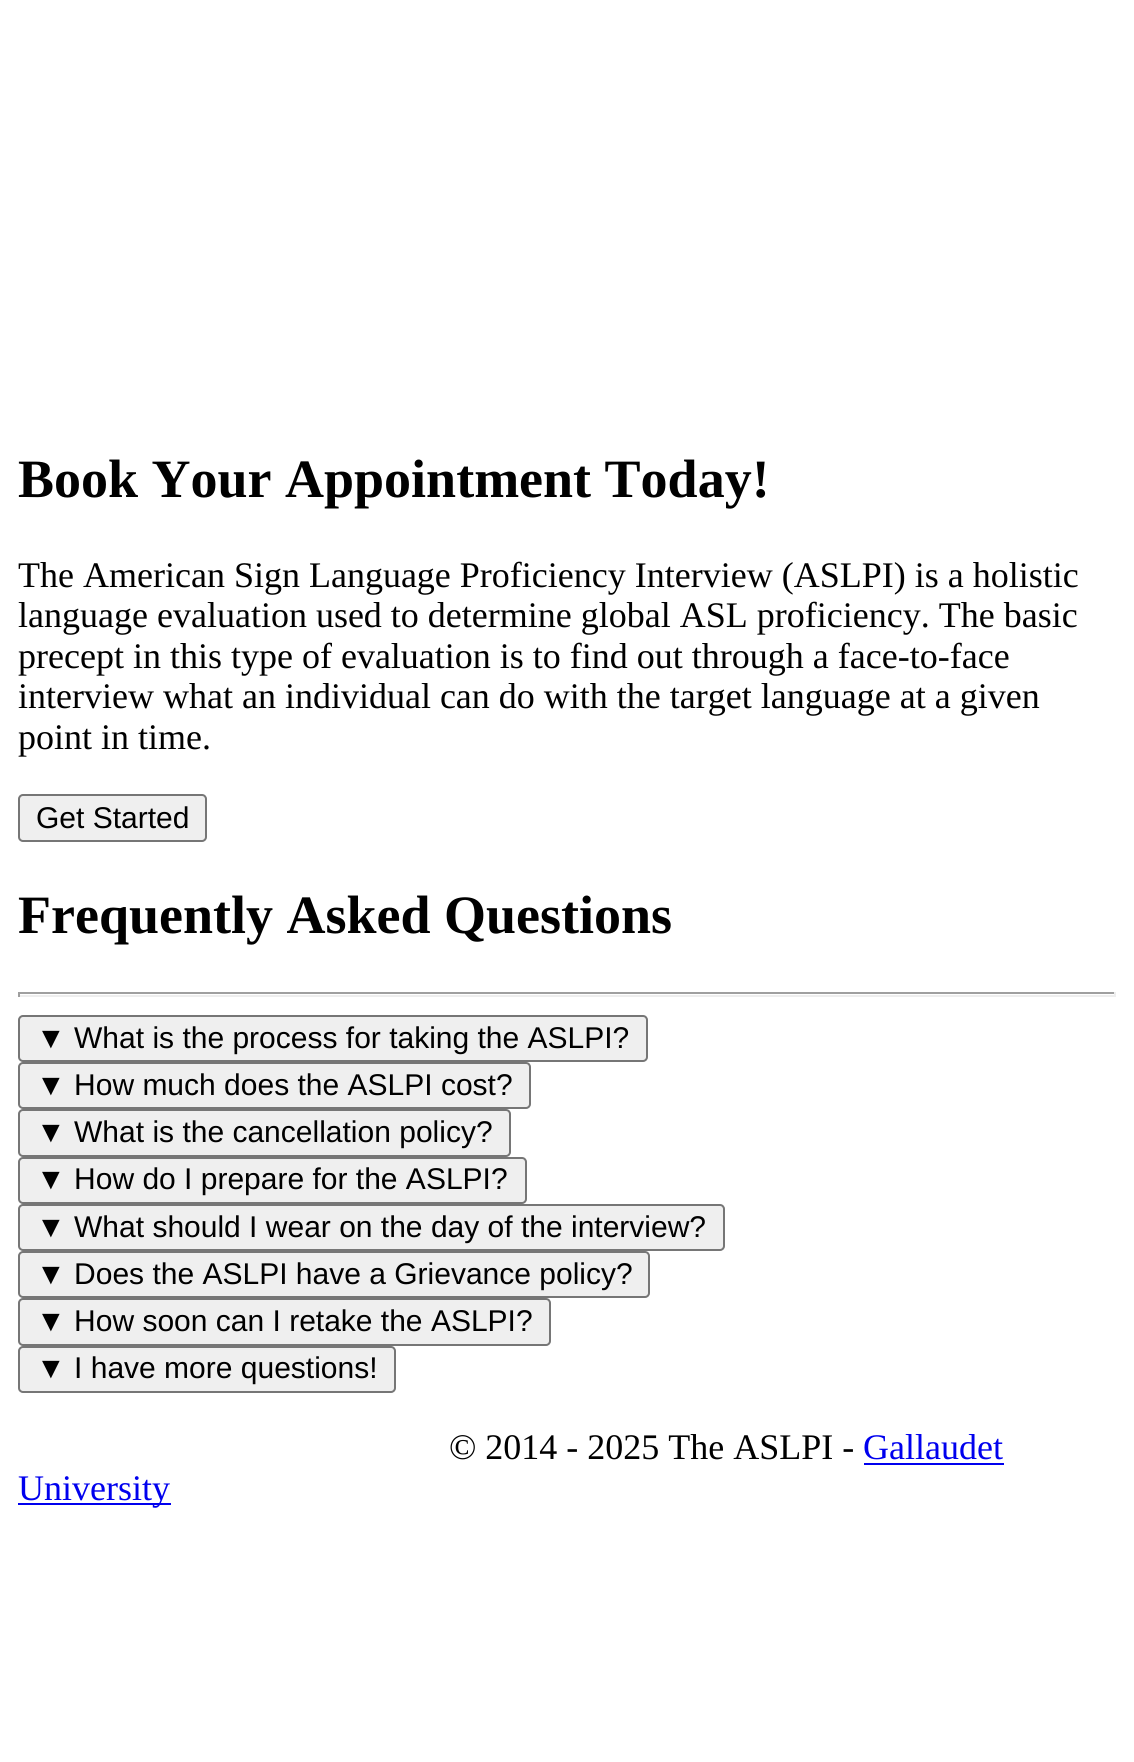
import math
import cairo

surface = cairo.ImageSurface(cairo.FORMAT_RGB24, 1134, 1762)
c = cairo.Context(surface)
options = cairo.FontOptions()
options.set_hint_metrics(cairo.HINT_METRICS_OFF)
options.set_hint_style(cairo.HINT_STYLE_NONE)
c.set_font_options(options)
c.set_miter_limit(4)
def C(code):
 c.set_source_rgb(*(v / 255 for v in bytes.fromhex(code[-6:])))
def F(family, size, italic, bold):
 c.select_font_face(family, cairo.FONT_SLANT_ITALIC if italic else cairo.FONT_SLANT_NORMAL, cairo.FONT_WEIGHT_BOLD if bold else cairo.FONT_WEIGHT_NORMAL)
 c.set_font_size(size)
def T(x, y, s):
 c.move_to(x, y)
 c.show_text(s)
def R(x, y, w, h):
 c.rectangle(x, y, w, h)
 c.fill()
def Q(x, y, w, h, r):
 c.new_sub_path()
 for i, (u, v) in enumerate([(x + w - r, y + h - r), (x + r, y + h - r), (x + r, y + r), (x + w - r, y + r)]):
  c.arc(u, v, r, i * math.pi / 2, (i + 1) * math.pi / 2)
 c.close_path()
C('ffffff')
c.paint()
F('Liberation Serif',54,0,1)
C('000000')
T(18,497,'Book Your Appointment Today!')
F('Liberation Serif',36,0,0)
T(18,587,'The American Sign Language Proficiency Interview (ASLPI) is a holistic')
T(18,627,'language evaluation used to determine global ASL proficiency. The basic')
T(18,668,'precept in this type of evaluation is to find out through a face-to-face')
T(18,708,'interview what an individual can do with the target language at a given')
T(18,749,'point in time.')
C('efefef')
Q(19,795,187,46,4)
c.fill_preserve()
C('767676')
c.stroke()
F('Liberation Sans',30,0,0)
C('000000')
T(36,828,'Get Started')
F('Liberation Serif',54,0,1)
T(18,933,'Frequently Asked Questions')
C('9f9f9f')
R(18,992,1098,2)
C('eeeeee')
R(1114,992,2,5)
R(18,995,1098,2)
C('9f9f9f')
R(18,992,2,5)
C('efefef')
Q(19,1016,628,45,4)
c.fill_preserve()
C('767676')
c.stroke()
F('Liberation Sans',30,0,0)
C('000000')
T(36,1048,'▼ What is the process for taking the ASLPI?')
C('efefef')
Q(19,1063,511,45,4)
c.fill_preserve()
C('767676')
c.stroke()
C('000000')
T(36,1095,'▼ How much does the ASLPI cost?')
C('efefef')
Q(19,1110,491,46,4)
c.fill_preserve()
C('767676')
c.stroke()
C('000000')
T(36,1142,'▼ What is the cancellation policy?')
C('efefef')
Q(19,1158,507,45,4)
c.fill_preserve()
C('767676')
c.stroke()
C('000000')
T(36,1189,'▼ How do I prepare for the ASLPI?')
C('efefef')
Q(19,1205,705,45,4)
c.fill_preserve()
C('767676')
c.stroke()
C('000000')
T(36,1237,'▼ What should I wear on the day of the interview?')
C('efefef')
Q(19,1252,630,45,4)
c.fill_preserve()
C('767676')
c.stroke()
C('000000')
T(36,1284,'▼ Does the ASLPI have a Grievance policy?')
C('efefef')
Q(19,1299,531,46,4)
c.fill_preserve()
C('767676')
c.stroke()
C('000000')
T(36,1331,'▼ How soon can I retake the ASLPI?')
C('efefef')
Q(19,1347,376,45,4)
c.fill_preserve()
C('767676')
c.stroke()
C('000000')
T(36,1378,'▼ I have more questions!')
F('Liberation Serif',36,0,0)
T(449,1459,'© 2014 - 2025 The ASLPI -')
C('0000ee')
T(863,1459,'Gallaudet')
R(864,1463,140,2)
R(18,1503,153,2)
T(18,1500,'University')
surface.write_to_png('o.png')
